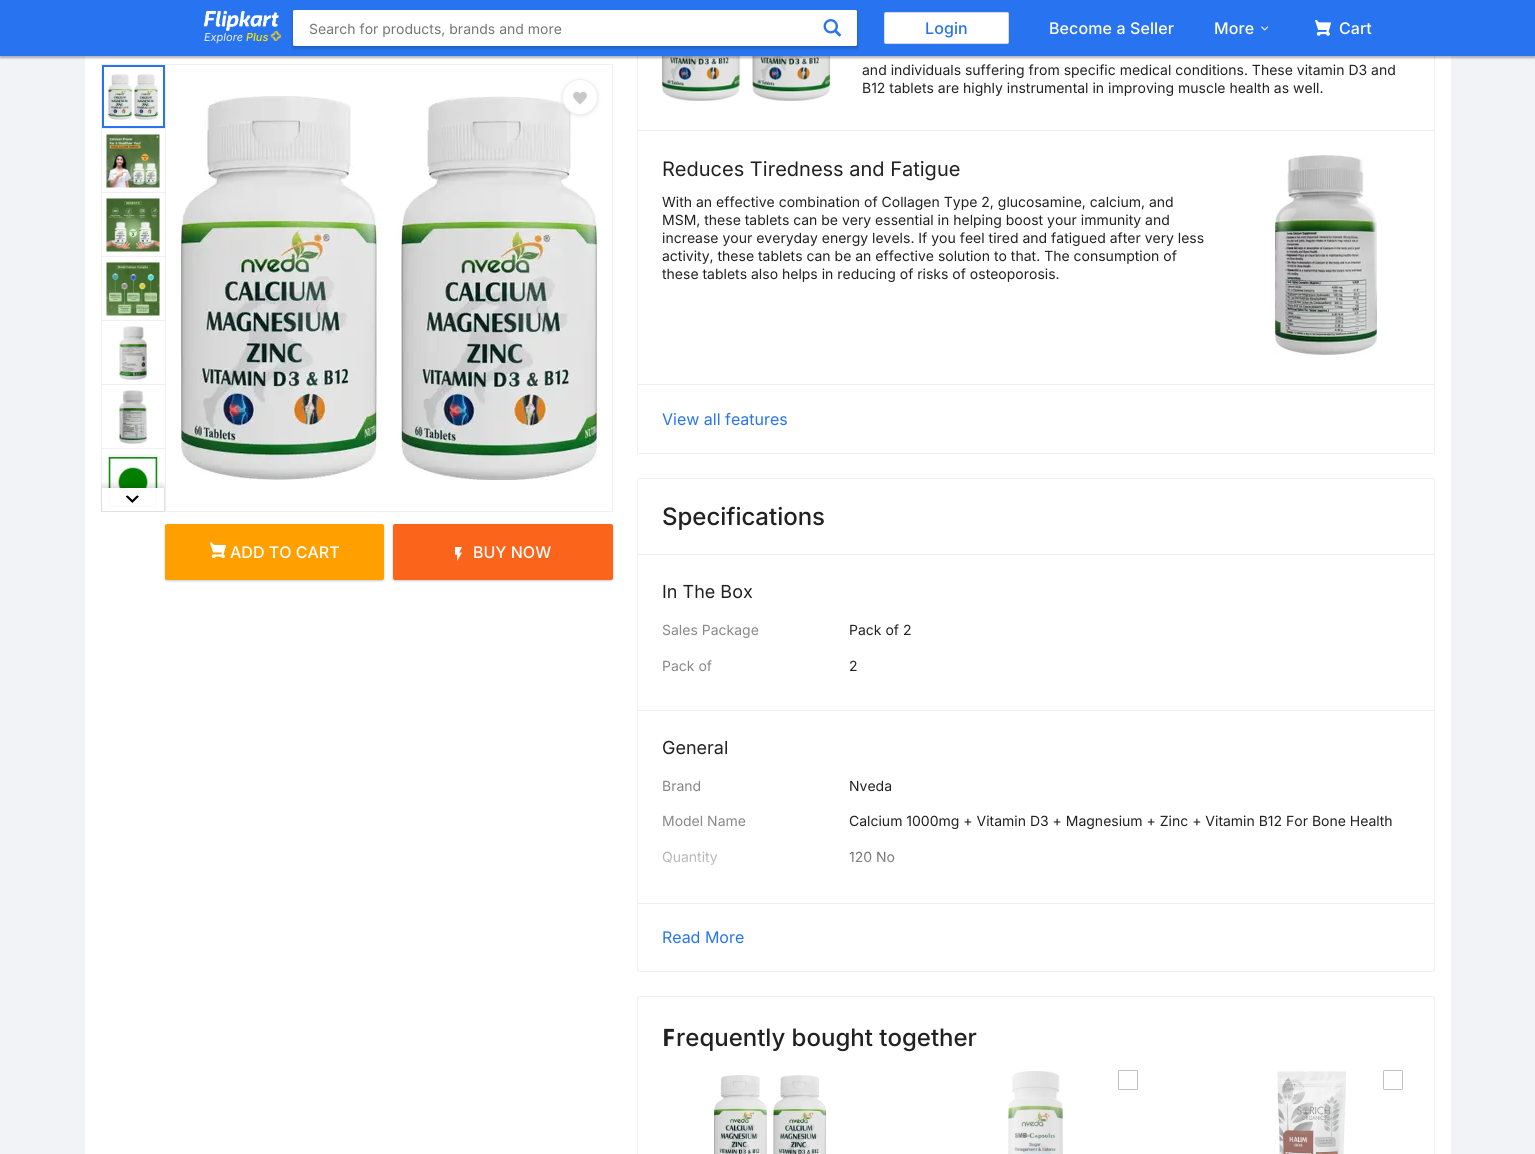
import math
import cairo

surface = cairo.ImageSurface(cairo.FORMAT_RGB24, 1535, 1154)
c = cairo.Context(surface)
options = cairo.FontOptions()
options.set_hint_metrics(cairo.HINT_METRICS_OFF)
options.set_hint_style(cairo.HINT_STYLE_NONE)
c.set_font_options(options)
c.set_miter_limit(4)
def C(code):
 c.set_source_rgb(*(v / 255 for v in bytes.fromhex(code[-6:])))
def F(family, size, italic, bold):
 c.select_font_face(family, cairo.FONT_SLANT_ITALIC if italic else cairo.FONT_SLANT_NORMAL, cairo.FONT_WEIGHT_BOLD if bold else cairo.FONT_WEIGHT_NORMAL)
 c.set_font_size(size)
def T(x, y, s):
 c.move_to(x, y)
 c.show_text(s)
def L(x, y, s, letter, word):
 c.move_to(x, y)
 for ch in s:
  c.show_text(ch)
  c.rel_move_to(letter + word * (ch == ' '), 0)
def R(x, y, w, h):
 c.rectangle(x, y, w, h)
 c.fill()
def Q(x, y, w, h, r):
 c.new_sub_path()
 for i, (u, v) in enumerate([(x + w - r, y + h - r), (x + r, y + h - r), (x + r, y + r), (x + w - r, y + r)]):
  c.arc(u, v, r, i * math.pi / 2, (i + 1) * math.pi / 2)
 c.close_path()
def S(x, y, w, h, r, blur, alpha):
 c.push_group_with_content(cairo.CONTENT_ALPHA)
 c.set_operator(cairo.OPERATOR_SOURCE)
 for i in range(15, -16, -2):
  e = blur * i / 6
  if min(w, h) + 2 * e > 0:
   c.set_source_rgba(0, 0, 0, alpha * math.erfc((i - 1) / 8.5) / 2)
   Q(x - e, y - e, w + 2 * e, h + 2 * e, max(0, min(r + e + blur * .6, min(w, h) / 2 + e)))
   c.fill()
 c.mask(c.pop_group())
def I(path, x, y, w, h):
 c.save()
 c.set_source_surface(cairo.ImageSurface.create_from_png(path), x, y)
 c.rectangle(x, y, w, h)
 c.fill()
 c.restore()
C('f1f3f6')
c.paint()
C('ffffff')
R(85,56,1366,1098)
c.rectangle(637.5,-.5,797,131)
C('f0f0f0')
c.set_line_width(1)
c.stroke()
I('18.png',662,56,168,45)
C('000000')
S(0,55,1535,3,0,1,.3)
C('2874f0')
R(0,0,1535,56)
C('000000')
S(293,12,564,36,0,2,.23)
C('ffffff')
Q(293,10,564,36,2)
c.fill()
c.new_path()
c.move_to(295,10)
c.line_to(814,10)
c.line_to(814,46)
c.line_to(295,46)
c.curve_to(294,46,293,45,293,44)
c.line_to(293,12)
c.curve_to(293,11,294,10,295,10)
c.close_path()
c.fill()
F('Inter',14,0,0)
C('757575')
T(309,34,'Search for products, brands and more')
C('ffffff')
Q(814.5,10.5,42,35,1.5)
c.fill_preserve()
c.stroke()
I('1.png',823,19,19,18)
Q(884.5,12.5,124,31,1.5)
c.fill_preserve()
C('dbdbdb')
c.stroke()
F('Inter Medium',16,0,0)
C('2874f0')
L(925,34,'Login',.1,0)
C('ffffff')
L(1049,34,'Become a Seller',.1,0)
L(1214,34,'More',.1,0)
I('2.png',1261,26,8,5)
I('3.png',1315,20,16,16)
L(1339,34,'Cart',.1,0)
I('4.png',203,10,76,21)
F('Inter',11,1,0)
C('f0f0f0')
T(204,41,'Explore')
F('Inter Medium',11,1,0)
C('ffe500')
T(246,41,'Plus')
I('5.png',270,30,11,11)
C('f0f0f0')
R(101,64,64,1)
R(101,64,1,64)
c.rectangle(103,66,61,61)
C('2874f0')
c.set_line_width(2)
c.stroke()
I('6.png',108,74,50,46)
C('f0f0f0')
R(101,128,64,1)
R(101,128,1,64)
I('7.png',106,134,54,54)
R(101,192,64,1)
R(101,192,1,64)
I('8.png',106,198,54,54)
R(101,256,64,1)
R(101,256,1,64)
I('9.png',106,262,54,54)
R(101,320,64,1)
R(101,320,1,64)
I('10.png',119,326,28,54)
R(101,384,64,1)
R(101,384,1,64)
I('11.png',119,390,28,54)
R(101,448,64,1)
R(101,448,1,40)
I('12.png',108,454,50,54)
C('000000')
S(165,525,219,56,2,1,.2)
C('ff9f00')
Q(165,524,219,56,2)
c.fill()
c.save()
c.rectangle(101,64,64,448)
c.clip()
c.rectangle(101,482,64,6)
c.clip()
C('000000')
S(102,489,62,22,0,5,.3)
c.restore()
c.set_source_rgba(1,1,1,0.98)
R(108,488,50,20)
C('e0e0e0')
R(164,488,1,24)
R(101,511,64,1)
R(101,488,1,24)
I('13.png',125,495,14,8)
c.rectangle(165.5,64.5,447,447)
C('f0f0f0')
c.set_line_width(1)
c.stroke()
I('14.png',181,96,416,384)
C('000000')
S(562,80,36,36,18,2,.1)
C('ffffff')
c.arc(580,97,17.5,0,2 * math.pi)
c.fill_preserve()
C('f0f0f0')
c.stroke()
I('15.png',572,91,16,14)
I('16.png',210,542,16,16)
F('Inter Medium',16,0,0)
C('ffffff')
T(230,558,'ADD TO CART')
C('000000')
S(393,525,220,56,2,1,.2)
C('fb641b')
Q(393,524,220,56,2)
c.fill()
I('17.png',455,547,7,14)
C('ffffff')
T(473,558,'BUY NOW')
F('Inter',14,0,0)
C('212121')
T(862,75,'and individuals suffering from specific medical conditions. These vitamin D3 and')
T(862,93,'B12 tablets are highly instrumental in improving muscle health as well.')
c.rectangle(637.5,130.5,797,254)
C('f0f0f0')
c.stroke()
F('Inter',20,0,0)
C('212121')
T(662,176,'Reduces Tiredness and Fatigue')
F('Inter',14,0,0)
T(662,207,'With an effective combination of Collagen Type 2, glucosamine, calcium, and')
T(662,225,'MSM, these tablets can be very essential in helping boost your immunity and')
T(662,243,'increase your everyday energy levels. If you feel tired and fatigued after very less')
T(662,261,'activity, these tablets can be an effective solution to that. The consumption of')
T(662,279,'these tablets also helps in reducing of risks of osteoporosis.')
I('19.png',1275,155,102,200)
C('ffffff')
c.new_path()
c.move_to(637.5,384.5)
c.line_to(1434.5,384.5)
c.line_to(1434.5,452)
c.curve_to(1434.5,453,1434,453.5,1433,453.5)
c.line_to(639,453.5)
c.curve_to(638,453.5,637.5,453,637.5,452)
c.close_path()
c.fill_preserve()
C('f0f0f0')
c.stroke()
F('Inter',16,0,0)
C('2874f0')
T(662,425,'View all features')
Q(637.5,478.5,797,493,1.5)
C('f0f0f0')
c.stroke()
F('Inter Medium',24,0,0)
C('212121')
T(662,525,'Specifications')
C('f0f0f0')
R(638,554,796,1)
F('Inter',18,0,0)
C('212121')
T(662,598,'In The Box')
F('Inter',14,0,0)
C('878787')
T(662,635,'Sales Package')
C('212121')
T(849,635,'Pack of 2')
C('878787')
T(662,671,'Pack of')
C('212121')
T(849,671,'2')
C('f0f0f0')
R(638,710,796,1)
F('Inter',18,0,0)
C('212121')
T(662,754,'General')
F('Inter',14,0,0)
C('878787')
T(662,791,'Brand')
C('212121')
T(849,791,'Nveda')
C('878787')
T(662,826,'Model Name')
C('212121')
T(849,826,'Calcium 1000mg + Vitamin D3 + Magnesium + Zinc + Vitamin B12 For Bone Health')
C('878787')
T(662,862,'Quantity')
C('212121')
T(849,862,'120 No')
gradient = cairo.LinearGradient(1036,823,1036,903)
gradient.add_color_stop_rgba(.05,1,1,1,0)
gradient.add_color_stop_rgba(1,1,1,1,1)
c.set_source(gradient)
R(662,851,232,14)
C('f0f0f0')
R(638,903,796,1)
F('Inter',16,0,0)
C('2874f0')
T(662,943,'Read More')
Q(637.5,996.5,797,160,1.5)
C('f0f0f0')
c.stroke()
F('Noto Sans',24,0,1)
C('212121')
T(662,1046,'F')
F('Inter Medium',24,0,0)
T(676,1046,'requently bought together')
I('20.png',714,1075,112,79)
I('21.png',1008,1071,55,83)
Q(1118.5,1070.5,19,19,1)
C('c2c2c2')
c.stroke()
I('22.png',1277,1071,69,83)
Q(1383.5,1070.5,19,19,1)
c.stroke()
surface.write_to_png('o.png')
